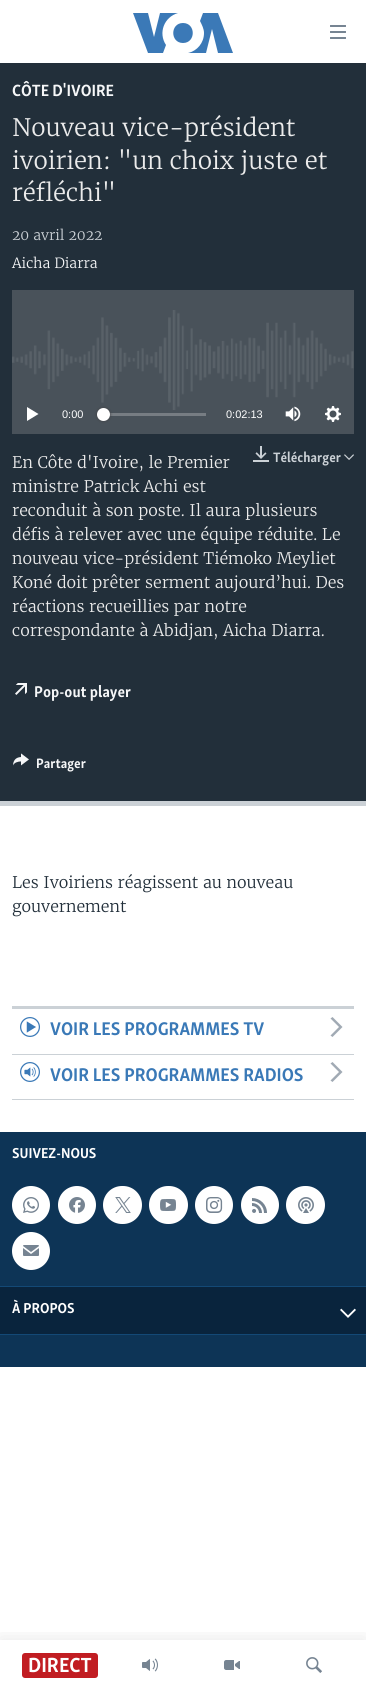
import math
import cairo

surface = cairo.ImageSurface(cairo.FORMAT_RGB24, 366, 1690)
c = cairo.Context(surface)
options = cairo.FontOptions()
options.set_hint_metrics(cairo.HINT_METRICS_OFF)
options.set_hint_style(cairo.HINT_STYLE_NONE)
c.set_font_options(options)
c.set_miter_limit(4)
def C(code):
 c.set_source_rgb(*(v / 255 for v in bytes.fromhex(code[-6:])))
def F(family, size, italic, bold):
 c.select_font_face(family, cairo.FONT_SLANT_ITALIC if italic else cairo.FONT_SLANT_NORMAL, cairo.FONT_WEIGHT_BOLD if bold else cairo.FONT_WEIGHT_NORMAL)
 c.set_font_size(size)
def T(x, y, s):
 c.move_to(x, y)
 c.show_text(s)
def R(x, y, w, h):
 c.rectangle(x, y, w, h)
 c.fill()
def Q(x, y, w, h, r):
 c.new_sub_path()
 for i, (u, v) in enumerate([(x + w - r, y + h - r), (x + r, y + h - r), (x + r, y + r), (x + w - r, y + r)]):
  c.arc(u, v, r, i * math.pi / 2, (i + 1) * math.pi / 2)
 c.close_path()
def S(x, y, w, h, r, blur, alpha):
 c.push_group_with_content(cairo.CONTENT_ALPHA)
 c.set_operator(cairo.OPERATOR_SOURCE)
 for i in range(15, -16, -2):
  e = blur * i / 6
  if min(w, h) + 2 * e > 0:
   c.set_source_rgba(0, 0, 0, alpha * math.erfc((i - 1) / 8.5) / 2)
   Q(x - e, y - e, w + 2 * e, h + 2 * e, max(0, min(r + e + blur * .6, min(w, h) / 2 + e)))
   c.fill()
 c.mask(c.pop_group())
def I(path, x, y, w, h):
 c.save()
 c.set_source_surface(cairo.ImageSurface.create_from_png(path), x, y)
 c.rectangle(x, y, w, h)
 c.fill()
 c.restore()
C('ffffff')
c.paint()
C('222f3a')
R(0,63,366,738)
C('cbd1d6')
R(0,801,366,5)
F('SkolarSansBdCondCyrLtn',16.75,0,1)
C('f6f7f8')
T(12,96,'CÔTE D\'IVOIRE')
F('Merriweather Light',24,0,0)
C('ebebeb')
T(12,136,'Nouveau vice-président')
T(12,169,'ivoirien: "un choix juste et')
T(12,201,'réfléchi"')
F('Merriweather Light',14,0,0)
C('cbd1d6')
T(12,240,'20 avril 2022')
C('f6f7f8')
T(12,268,'Aicha Diarra')
C('49525a')
R(12,290,342,144)
I('1.png',12,310,342,100)
C('ffffff')
c.new_path()
c.move_to(27,421)
c.line_to(38.5,414)
c.line_to(27,407)
c.close_path()
c.fill()
F('Liberation Sans',11,0,0)
T(62,418,'0:00')
C('777d83')
R(103,413,103,3)
C('414144')
S(97,408,13,13,6.5,1.5,1)
C('ffffff')
c.arc(103.5,414.5,6.5,0,2 * math.pi)
c.fill()
T(226,418,'0:02:13')
I('2.png',285,406,16,16)
I('3.png',325,406,16,16)
I('4.png',253,446,16,16)
F('SkolarSansBdCondCyrLtn',14,0,1)
C('cbd1d6')
T(273,462,'Télécharger')
I('5.png',344,454,10,6)
F('Merriweather Light',16,0,0)
C('ebebeb')
T(12,468,'En Côte d\'Ivoire, le Premier')
T(12,492,'ministre Patrick Achi est')
T(12,516,'reconduit à son poste. Il aura plusieurs')
T(12,540,'défis à relever avec une équipe réduite. Le')
T(12,564,'nouveau vice-président Tiémoko Meyliet')
T(12,588,'Koné doit prêter serment aujourd’hui. Des')
T(12,612,'réactions recueillies par notre')
T(12,636,'correspondante à Abidjan, Aicha Diarra.')
I('6.png',15,683,12,12)
F('SkolarSansBdCondCyrLtn',16,0,1)
C('f6f7f8')
T(34,697,'Pop-out player')
I('7.png',13,753,16,13)
F('SkolarSansBdCondCyrLtn',14,0,1)
T(36,768,'Partager')
F('Merriweather Light',16,0,0)
C('222f3a')
T(12,888,'Les Ivoiriens réagissent au nouveau')
T(12,912,'gouvernement')
C('cbd1d6')
R(12,1006,342,3)
R(12,1054,342,1)
I('8.png',20,1017,20,20)
F('SkolarSansBdCondCyrLtn',18.9,0,1)
C('3a79b7')
T(50,1035,'VOIR LES PROGRAMMES TV')
C('a1aab4')
c.new_path()
c.move_to(332.5,1037)
c.line_to(342.5,1027)
c.line_to(332.5,1017)
c.line_to(330.5,1018.5)
c.line_to(339,1027)
c.line_to(330.5,1035.5)
c.close_path()
c.fill()
C('cbd1d6')
R(12,1099,342,1)
I('9.png',20,1062,20,20)
C('3a79b7')
T(50,1081,'VOIR LES PROGRAMMES RADIOS')
C('a1aab4')
c.new_path()
c.move_to(332.5,1082)
c.line_to(342.5,1072)
c.line_to(332.5,1062)
c.line_to(330.5,1063.5)
c.line_to(339,1072)
c.line_to(330.5,1080.5)
c.close_path()
c.fill()
C('0d3456')
R(0,1132,366,235)
C('134976')
R(0,1334,366,1)
F('SkolarSansBdCondCyrLtn',14.75,0,1)
C('ffffff')
T(12,1158,'SUIVEZ-NOUS')
c.new_path()
c.arc(31,1205,19,0,2 * math.pi)
c.fill()
I('10.png',23,1197,16,16)
c.arc(77,1205,19,0,2 * math.pi)
c.fill()
I('11.png',69,1197,16,16)
Q(103,1186,39,38,19)
c.fill()
I('12.png',115,1197,16,16)
Q(149,1186,39,38,19)
c.fill()
I('13.png',160,1199,16,12)
c.arc(214,1205,19,0,2 * math.pi)
c.fill()
I('14.png',206,1197,17,16)
c.arc(260,1205,19,0,2 * math.pi)
c.fill()
I('15.png',252,1198,15,15)
Q(286,1186,39,38,19)
c.fill()
I('16.png',298,1197,16,16)
c.arc(31,1251,19,0,2 * math.pi)
c.fill()
I('17.png',23,1245,16,11)
C('134976')
R(0,1286,366,1)
C('09243d')
R(0,1287,366,47)
C('ffffff')
T(12,1313,'À PROPOS')
I('18.png',340,1308,16,10)
C('3b79b7')
c.new_path()
c.move_to(166,45)
c.line_to(163,53)
c.line_to(148,53)
c.line_to(133,13)
c.line_to(148,13)
c.line_to(154,37)
c.line_to(160,13)
c.line_to(178,13)
c.curve_to(164,17,158,33,166,45)
c.close_path()
c.move_to(183,23)
c.curve_to(170,23,170,43,183,43)
c.curve_to(196,43,196,23,183,23)
c.close_path()
c.move_to(204,33)
c.curve_to(204,43,197,51,188,53)
c.line_to(206,53)
c.line_to(212,29)
c.line_to(218,53)
c.line_to(233,53)
c.line_to(218,13)
c.line_to(203,13)
c.line_to(200,21)
c.curve_to(202,25,204,29,204,33)
c.close_path()
c.fill()
I('19.png',330,25,16,14)
c.save()
c.rectangle(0,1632,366,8)
c.clip()
C('000000')
S(0,1640,366,50,0,10,.1)
c.restore()
C('c11d22')
Q(22,1653,76,25,3)
c.fill()
F('SkolarSansBdCondCyrLtn',21,0,1)
C('ffffff')
T(28,1672,'DIRECT')
I('20.png',142,1658,16,14)
I('21.png',224,1660,16,10)
I('22.png',306,1657,16,16)
surface.write_to_png('o.png')
